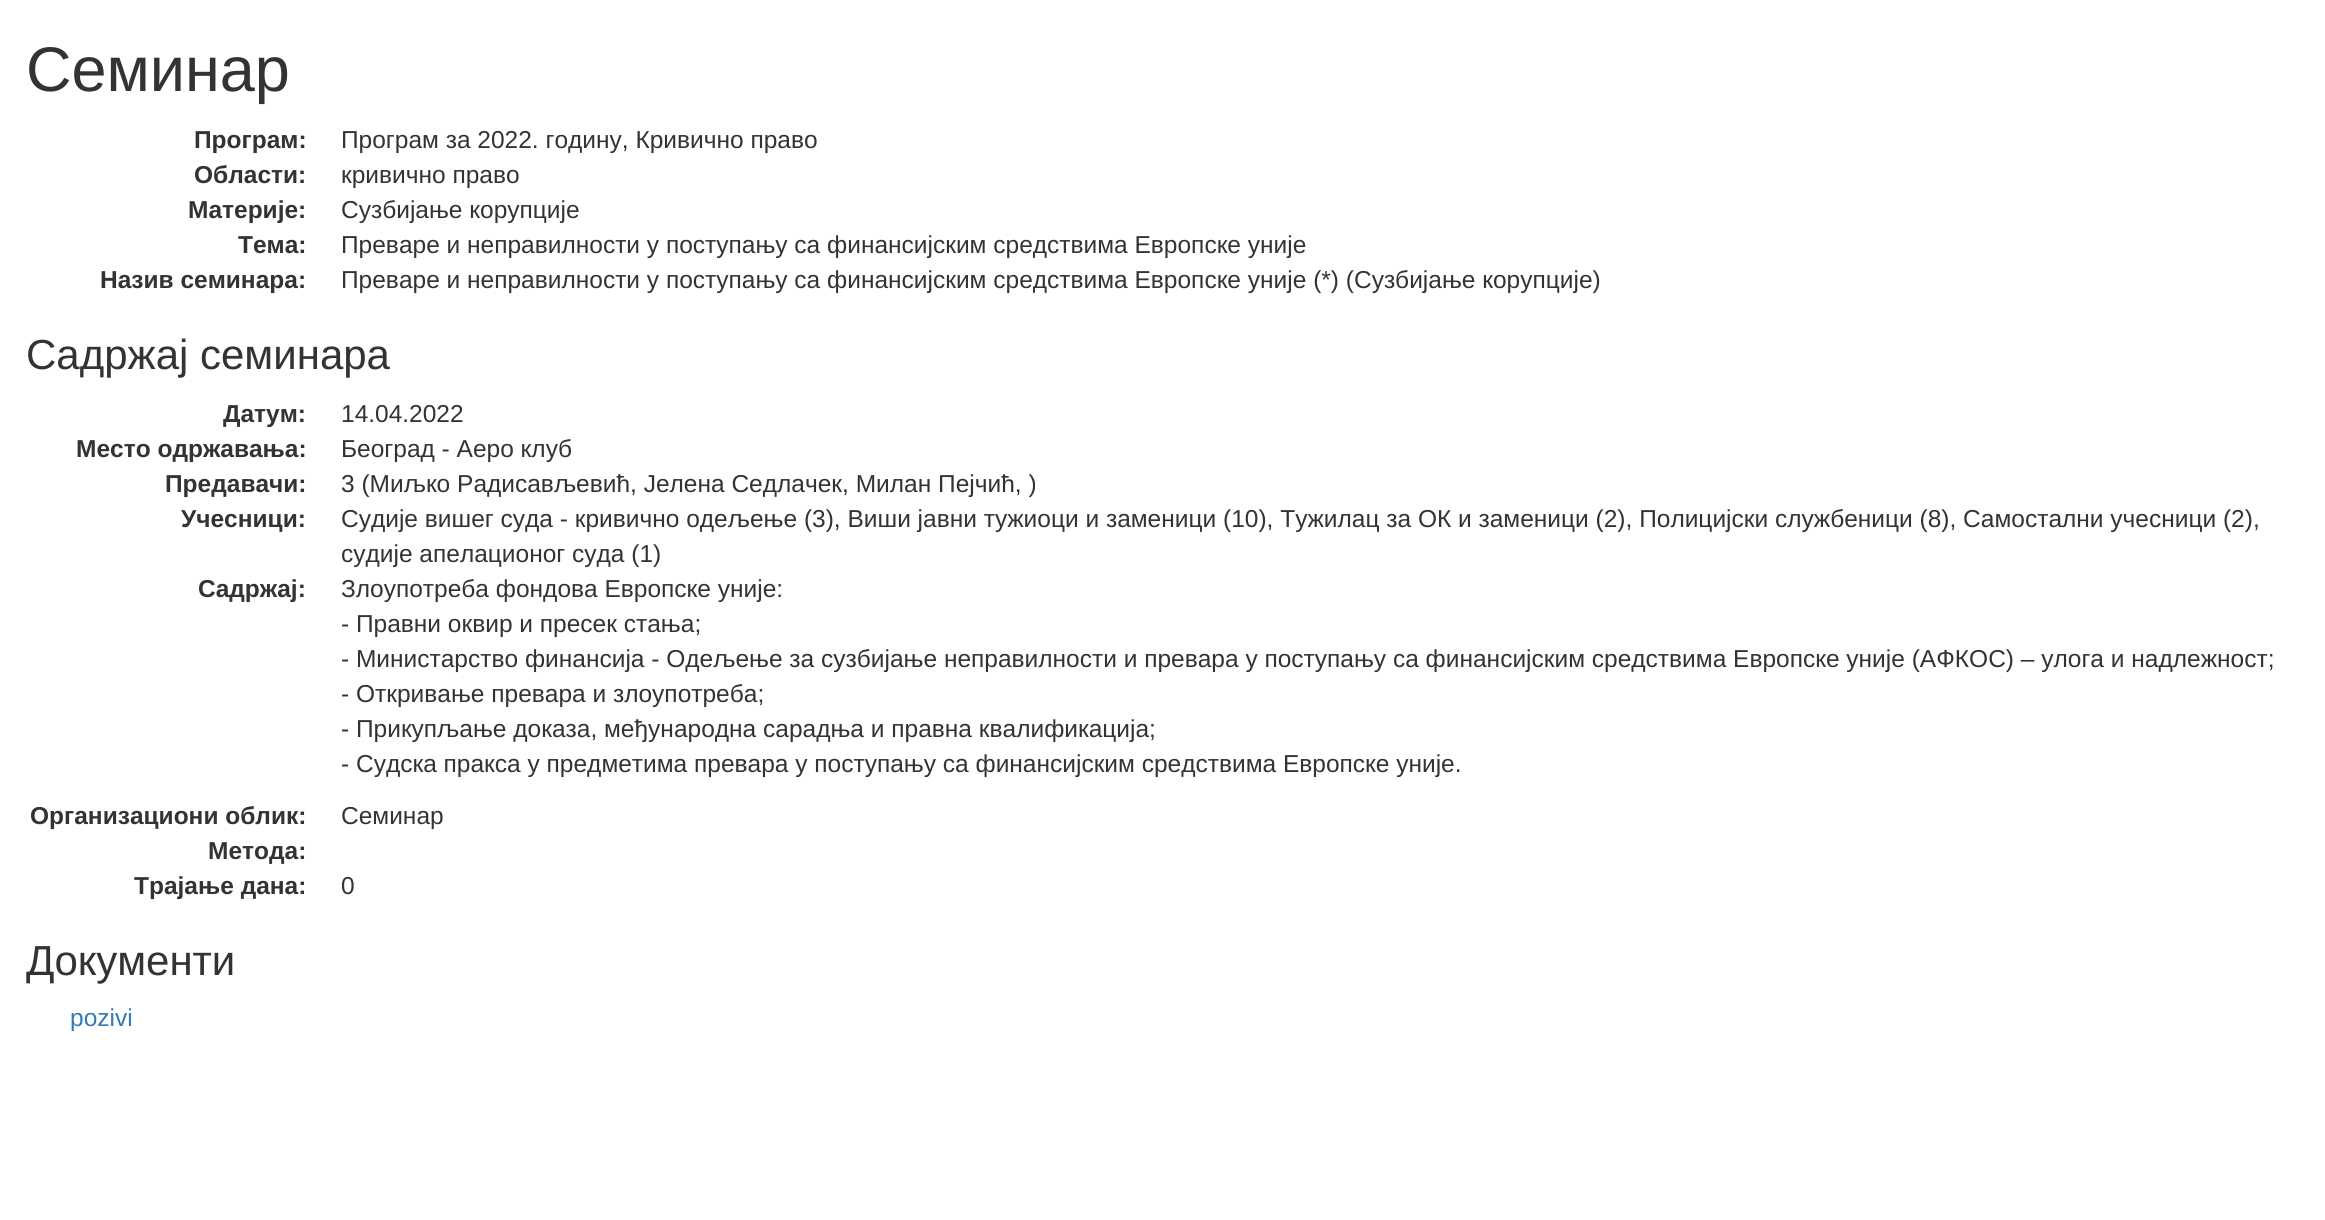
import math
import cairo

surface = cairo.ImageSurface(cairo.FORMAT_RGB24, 2325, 1220)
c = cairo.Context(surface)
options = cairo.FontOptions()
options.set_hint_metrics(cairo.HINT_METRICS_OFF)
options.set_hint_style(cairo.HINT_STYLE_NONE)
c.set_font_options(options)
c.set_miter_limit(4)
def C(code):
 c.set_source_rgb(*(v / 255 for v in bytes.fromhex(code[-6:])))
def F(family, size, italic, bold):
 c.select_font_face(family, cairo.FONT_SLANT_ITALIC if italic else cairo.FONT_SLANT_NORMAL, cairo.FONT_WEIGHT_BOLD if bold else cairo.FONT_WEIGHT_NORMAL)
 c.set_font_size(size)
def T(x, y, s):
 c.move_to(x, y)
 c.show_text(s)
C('ffffff')
c.paint()
F('Liberation Sans',63,0,0)
C('333333')
T(26,91,'Семинар')
F('Liberation Sans',24.5,0,1)
T(194,148,'Програм:')
F('Liberation Sans',24.5,0,0)
T(341,148,'Програм за 2022. годину, Кривично право')
F('Liberation Sans',24.5,0,1)
T(194,183,'Области:')
F('Liberation Sans',24.5,0,0)
T(341,183,'кривично право')
F('Liberation Sans',24.5,0,1)
T(188,218,'Материјe:')
F('Liberation Sans',24.5,0,0)
T(341,218,'Сузбијање корупције')
F('Liberation Sans',24.5,0,1)
T(238,253,'Тема:')
F('Liberation Sans',24.5,0,0)
T(341,253,'Преваре и неправилности у поступању са финансијским средствима Европске уније')
F('Liberation Sans',24.5,0,1)
T(100,288,'Назив семинара:')
F('Liberation Sans',24.5,0,0)
T(341,288,'Преваре и неправилности у поступању са финансијским средствима Европске уније (*) (Сузбијање корупције)')
F('Liberation Sans',42,0,0)
T(26,369,'Садржај семинара')
F('Liberation Sans',24.5,0,1)
T(223,422,'Датум:')
F('Liberation Sans',24.5,0,0)
T(341,422,'14.04.2022')
F('Liberation Sans',24.5,0,1)
T(76,457,'Место одржавања:')
F('Liberation Sans',24.5,0,0)
T(341,457,'Београд - Аеро клуб')
F('Liberation Sans',24.5,0,1)
T(165,492,'Предавачи:')
F('Liberation Sans',24.5,0,0)
T(341,492,'3 (Миљко Радисављевић, Јелена Седлачек, Милан Пејчић, )')
F('Liberation Sans',24.5,0,1)
T(181,527,'Учесници:')
F('Liberation Sans',24.5,0,0)
T(341,527,'Судије вишег суда - кривично одељење (3), Виши јавни тужиоци и заменици (10), Тужилац за ОК и заменици (2), Полицијски службеници (8), Самостални учесници (2),')
T(341,562,'судије апелационог суда (1)')
F('Liberation Sans',24.5,0,1)
T(198,597,'Садржај:')
F('Liberation Sans',24.5,0,0)
T(341,597,'Злоупотреба фондова Европске уније:')
T(341,632,'- Правни оквир и пресек стања;')
T(341,667,'- Министарство финансија - Одељење за сузбијање неправилности и превара у поступању са финансијским средствима Европске уније (АФКОС) – улога и надлежност;')
T(341,702,'- Откривање превара и злоупотреба;')
T(341,737,'- Прикупљање доказа, међународна сарадња и правна квалификација;')
T(341,772,'- Судска пракса у предметима превара у поступању са финансијским средствима Европске уније.')
F('Liberation Sans',24.5,0,1)
T(30,824,'Организациони облик:')
F('Liberation Sans',24.5,0,0)
T(341,824,'Семинар')
F('Liberation Sans',24.5,0,1)
T(208,859,'Метода:')
T(134,894,'Трајање дана:')
F('Liberation Sans',24.5,0,0)
T(341,894,'0')
F('Liberation Sans',42,0,0)
T(26,975,'Документи')
F('Liberation Sans',24.5,0,0)
C('337ab7')
T(70,1026,'pozivi')
surface.write_to_png('o.png')
